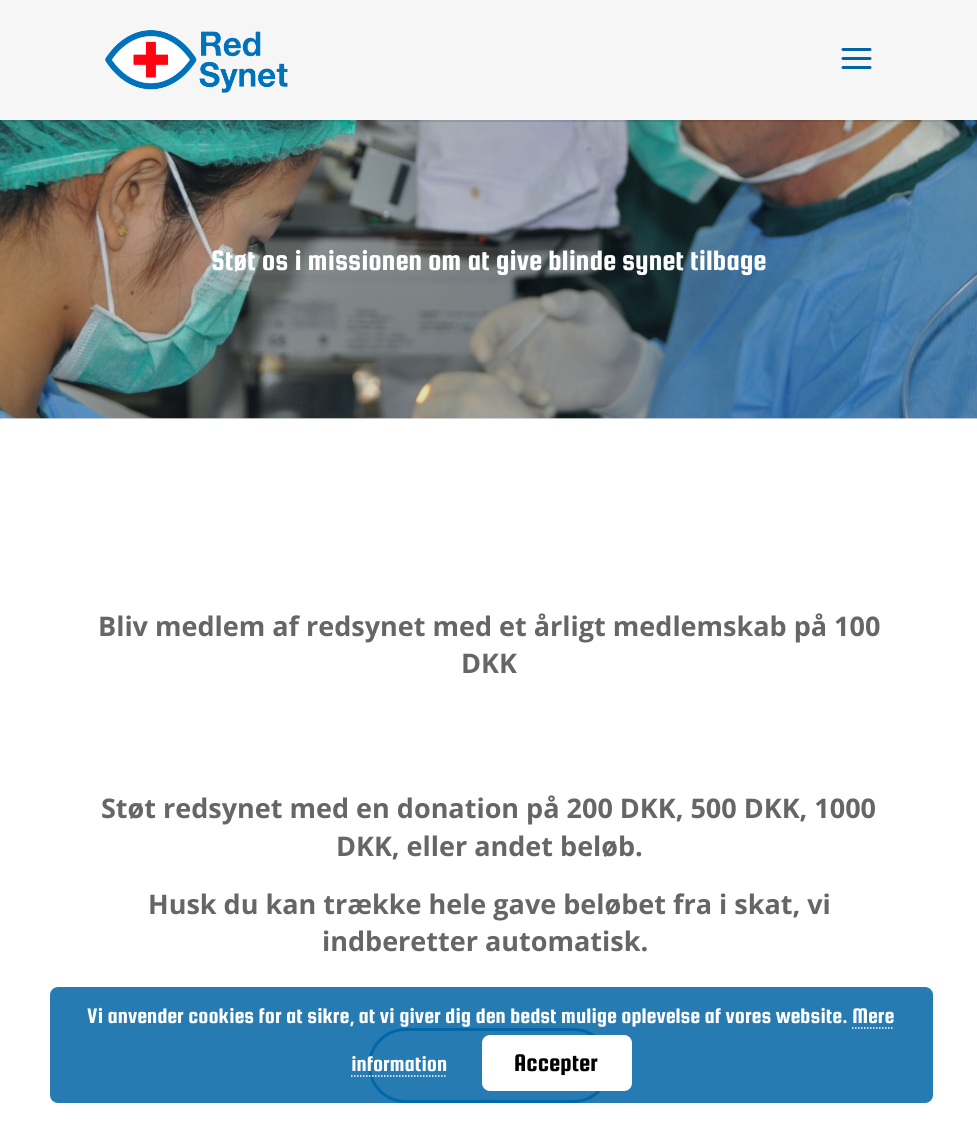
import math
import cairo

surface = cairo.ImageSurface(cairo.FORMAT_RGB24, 977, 1147)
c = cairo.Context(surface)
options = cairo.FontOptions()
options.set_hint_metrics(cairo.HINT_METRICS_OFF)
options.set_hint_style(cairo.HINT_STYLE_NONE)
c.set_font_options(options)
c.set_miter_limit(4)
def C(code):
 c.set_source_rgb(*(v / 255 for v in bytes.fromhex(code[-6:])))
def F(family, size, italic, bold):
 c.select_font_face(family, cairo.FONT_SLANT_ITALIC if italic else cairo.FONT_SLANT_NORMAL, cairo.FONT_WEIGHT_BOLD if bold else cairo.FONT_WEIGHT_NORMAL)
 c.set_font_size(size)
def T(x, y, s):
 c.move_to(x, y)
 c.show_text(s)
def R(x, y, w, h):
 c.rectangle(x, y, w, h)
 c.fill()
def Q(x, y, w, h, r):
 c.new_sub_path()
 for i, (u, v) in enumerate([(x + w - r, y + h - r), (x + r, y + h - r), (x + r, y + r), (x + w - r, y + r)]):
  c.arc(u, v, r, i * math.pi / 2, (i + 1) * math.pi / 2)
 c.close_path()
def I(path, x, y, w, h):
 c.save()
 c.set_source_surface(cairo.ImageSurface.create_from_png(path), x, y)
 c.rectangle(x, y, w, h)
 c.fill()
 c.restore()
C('ffffff')
c.paint()
C('dee2e6')
R(0,418,977,1)
I('3.png',0,120,977,299)
c.set_source_rgba(0,0,0,0.1)
R(0,120,977,2)
C('f7f6f6')
R(0,0,977,120)
I('1.png',105,30,183,63)
I('2.png',841,48,31,21)
F('Squada One',30,0,0)
C('ffffff')
T(211,270,'Støt os i missionen om at give blinde synet tilbage')
F('Open Sans',27,0,1)
C('666666')
T(98,636,'Bliv medlem af redsynet med et årligt medlemskab på 100')
T(461,673,'DKK')
T(101,818,'Støt redsynet med en donation på 200 DKK, 500 DKK, 1000')
T(336,856,'DKK, eller andet beløb.')
T(148,914,'Husk du kan trække hele gave beløbet fra i skat, vi')
T(322,951,'indberetter automatisk.')
Q(369.5,1029.5,240,72,36)
C('0c71c3')
c.set_line_width(3)
c.stroke()
c.set_source_rgba(0,0.396,0.647,0.85)
Q(50,987,883,116,8)
c.fill()
F('Squada One',22.5,0,0)
C('ffffff')
T(87,1023,'Vi anvender cookies for at sikre, at vi giver dig den bedst mulige oplevelse af vores website. Mere')
T(351,1071,'information')
c.new_path()
c.move_to(852,1028)
c.line_to(894,1028)
c.set_line_width(1.5)
c.set_dash([1.5,1.5])
c.stroke()
c.new_path()
c.move_to(351,1076)
c.line_to(447,1076)
c.stroke()
Q(482,1035,150,56,8)
c.fill()
F('Squada One',25.5,0,0)
C('000000')
T(514,1071,'Accepter')
surface.write_to_png('o.png')
